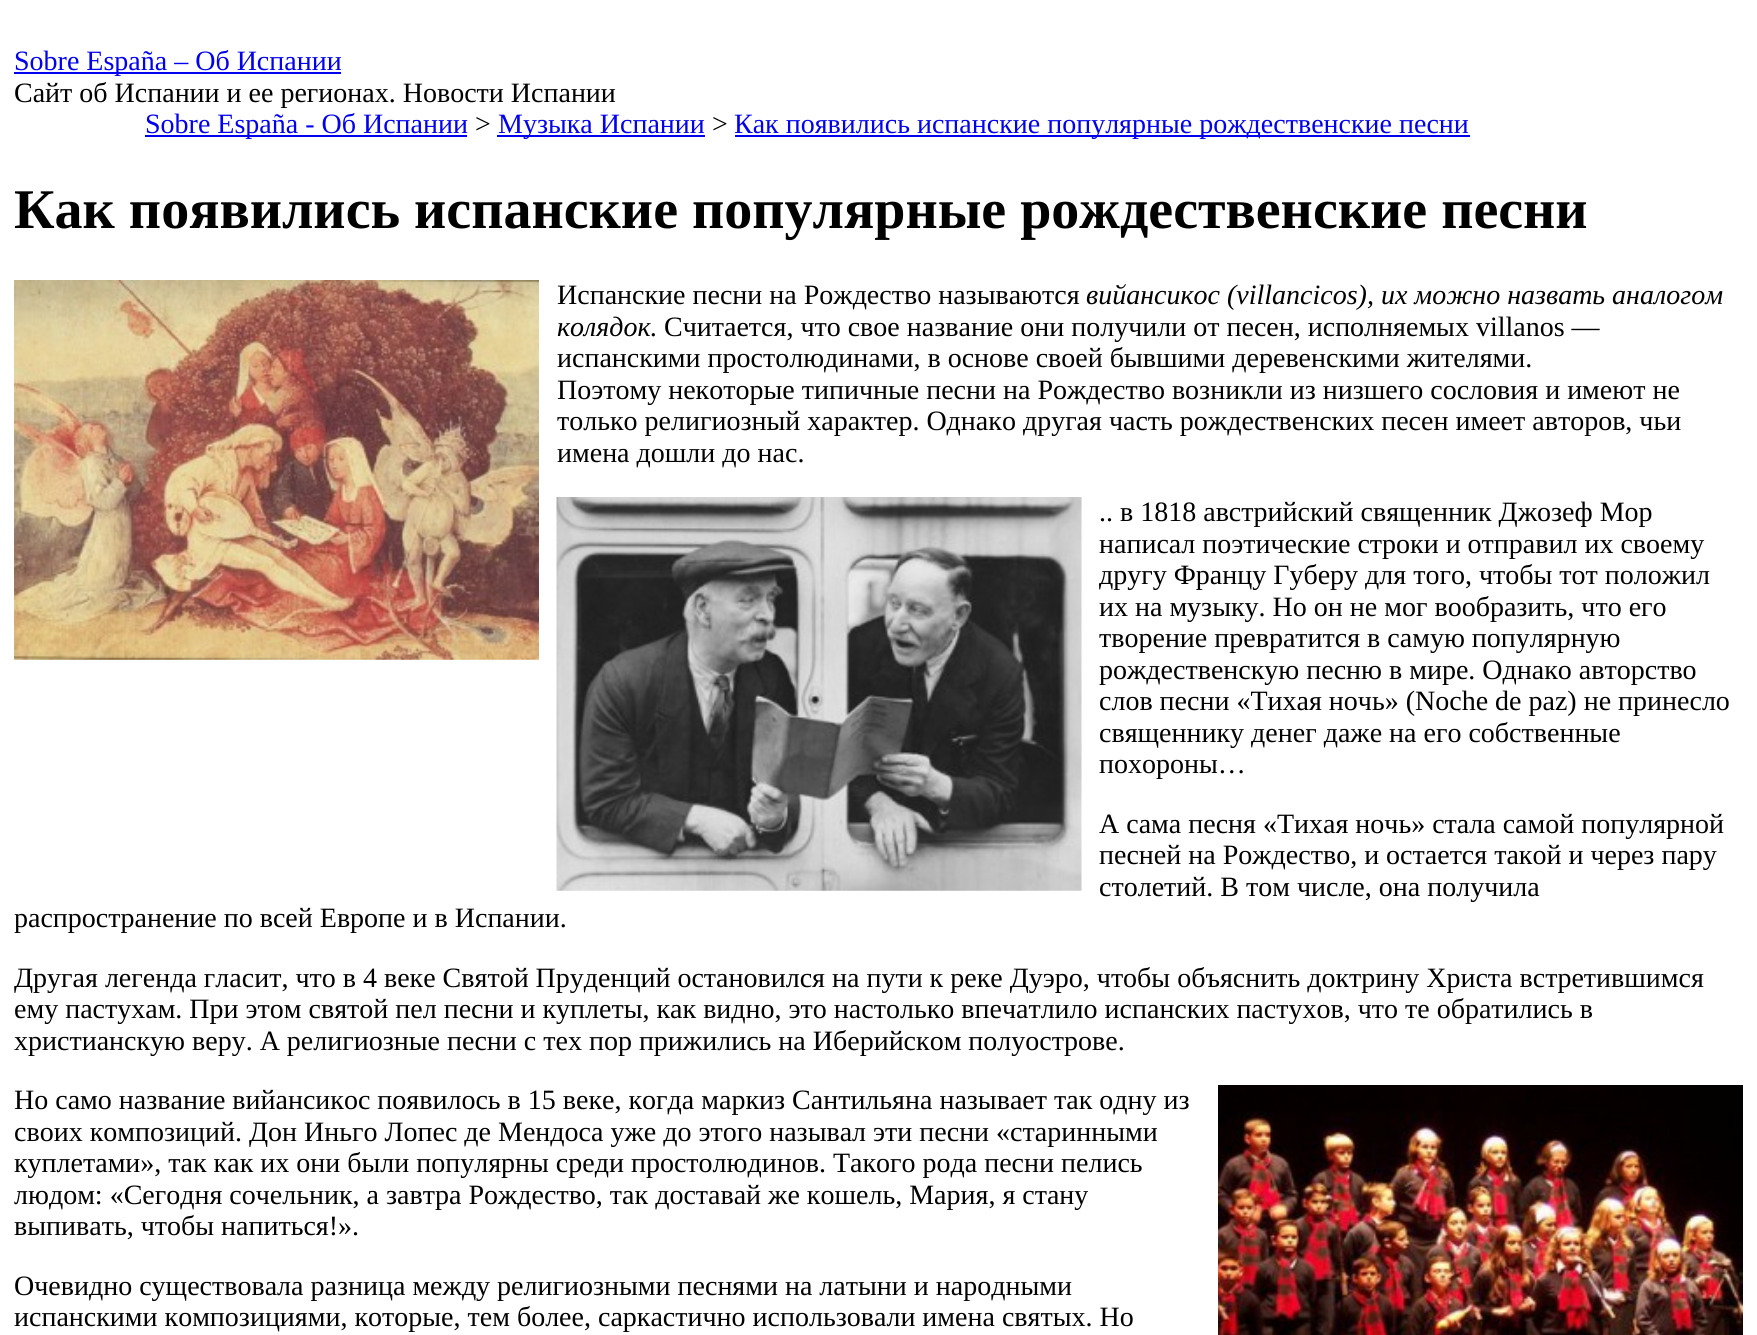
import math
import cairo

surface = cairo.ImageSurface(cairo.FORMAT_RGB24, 1757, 1335)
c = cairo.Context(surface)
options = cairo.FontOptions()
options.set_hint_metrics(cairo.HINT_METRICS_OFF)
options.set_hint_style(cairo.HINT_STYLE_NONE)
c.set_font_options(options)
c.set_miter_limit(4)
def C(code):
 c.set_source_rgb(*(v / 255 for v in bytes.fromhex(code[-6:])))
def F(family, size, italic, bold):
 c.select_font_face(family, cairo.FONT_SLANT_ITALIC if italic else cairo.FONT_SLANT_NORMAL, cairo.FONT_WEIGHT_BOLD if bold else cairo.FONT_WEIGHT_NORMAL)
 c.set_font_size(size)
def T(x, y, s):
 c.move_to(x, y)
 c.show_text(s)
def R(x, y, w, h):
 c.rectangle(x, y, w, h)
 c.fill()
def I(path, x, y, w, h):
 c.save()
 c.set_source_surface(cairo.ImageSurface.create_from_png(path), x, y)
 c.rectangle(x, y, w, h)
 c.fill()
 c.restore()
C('ffffff')
c.paint()
C('0000ee')
R(14,72,327,2)
F('Liberation Serif',28,0,0)
T(14,70,'Sobre España – Об Испании')
C('000000')
T(14,102,'Сайт об Испании и ее регионах. Новости Испании')
C('0000ee')
R(145,135,322,2)
T(145,133,'Sobre España - Об Испании')
C('000000')
T(475,133,'>')
C('0000ee')
R(497,135,208,2)
T(498,133,'Музыка Испании')
C('000000')
T(712,133,'>')
C('0000ee')
R(735,135,735,2)
T(734,133,'Как появились испанские популярные рождественские песни')
F('Liberation Serif',56,0,1)
C('000000')
T(14,228,'Как появились испанские популярные рождественские песни')
I('1.png',14,280,525,380)
F('Liberation Serif',28,0,0)
T(557,304,'Испанские песни на Рождество называются')
F('Liberation Serif',28,1,0)
T(1086,304,'вийансикос (villancicos), их можно назвать аналогом')
T(557,336,'колядок.')
F('Liberation Serif',28,0,0)
T(664,336,'Считается, что свое название они получили от песен, исполняемых villanos —')
T(557,367,'испанскими простолюдинами, в основе своей бывшими деревенскими жителями.')
T(557,399,'Поэтому некоторые типичные песни на Рождество возникли из низшего сословия и имеют не')
T(557,430,'только религиозный характер. Однако другая часть рождественских песен имеет авторов, чьи')
T(557,462,'имена дошли до нас.')
I('2.png',556,497,526,394)
T(1099,521,'.. в 1818 австрийский священник Джозеф Мор')
T(1099,553,'написал поэтические строки и отправил их своему')
T(1099,584,'другу Францу Губеру для того, чтобы тот положил')
T(1099,616,'их на музыку. Но он не мог вообразить, что его')
T(1099,647,'творение превратится в самую популярную')
T(1099,679,'рождественскую песню в мире. Однако авторство')
T(1099,710,'слов песни «Тихая ночь» (Noche de paz) не принесло')
T(1099,742,'священнику денег даже на его собственные')
T(1099,773,'похороны…')
T(1099,833,'А сама песня «Тихая ночь» стала самой популярной')
T(1099,864,'песней на Рождество, и остается такой и через пару')
T(1099,896,'столетий. В том числе, она получила')
T(14,927,'распространение по всей Европе и в Испании.')
T(14,987,'Другая легенда гласит, что в 4 веке Святой Пруденций остановился на пути к реке Дуэро, чтобы объяснить доктрину Христа встретившимся')
T(14,1018,'ему пастухам. При этом святой пел песни и куплеты, как видно, это настолько впечатлило испанских пастухов, что те обратились в')
T(14,1050,'христианскую веру. А религиозные песни с тех пор прижились на Иберийском полуострове.')
T(14,1109,'Но само название вийансикос появилось в 15 веке, когда маркиз Сантильяна называет так одну из')
I('3.png',1218,1085,525,250)
T(14,1141,'своих композиций. Дон Иньго Лопес де Мендоса уже до этого называл эти песни «старинными')
T(14,1172,'куплетами», так как их они были популярны среди простолюдинов. Такого рода песни пелись')
T(14,1204,'людом: «Сегодня сочельник, а завтра Рождество, так доставай же кошель, Мария, я стану')
T(14,1235,'выпивать, чтобы напиться!».')
T(14,1295,'Очевидно существовала разница между религиозными песнями на латыни и народными')
T(14,1326,'испанскими композициями, которые, тем более, саркастично использовали имена святых. Но')
surface.write_to_png('o.png')
